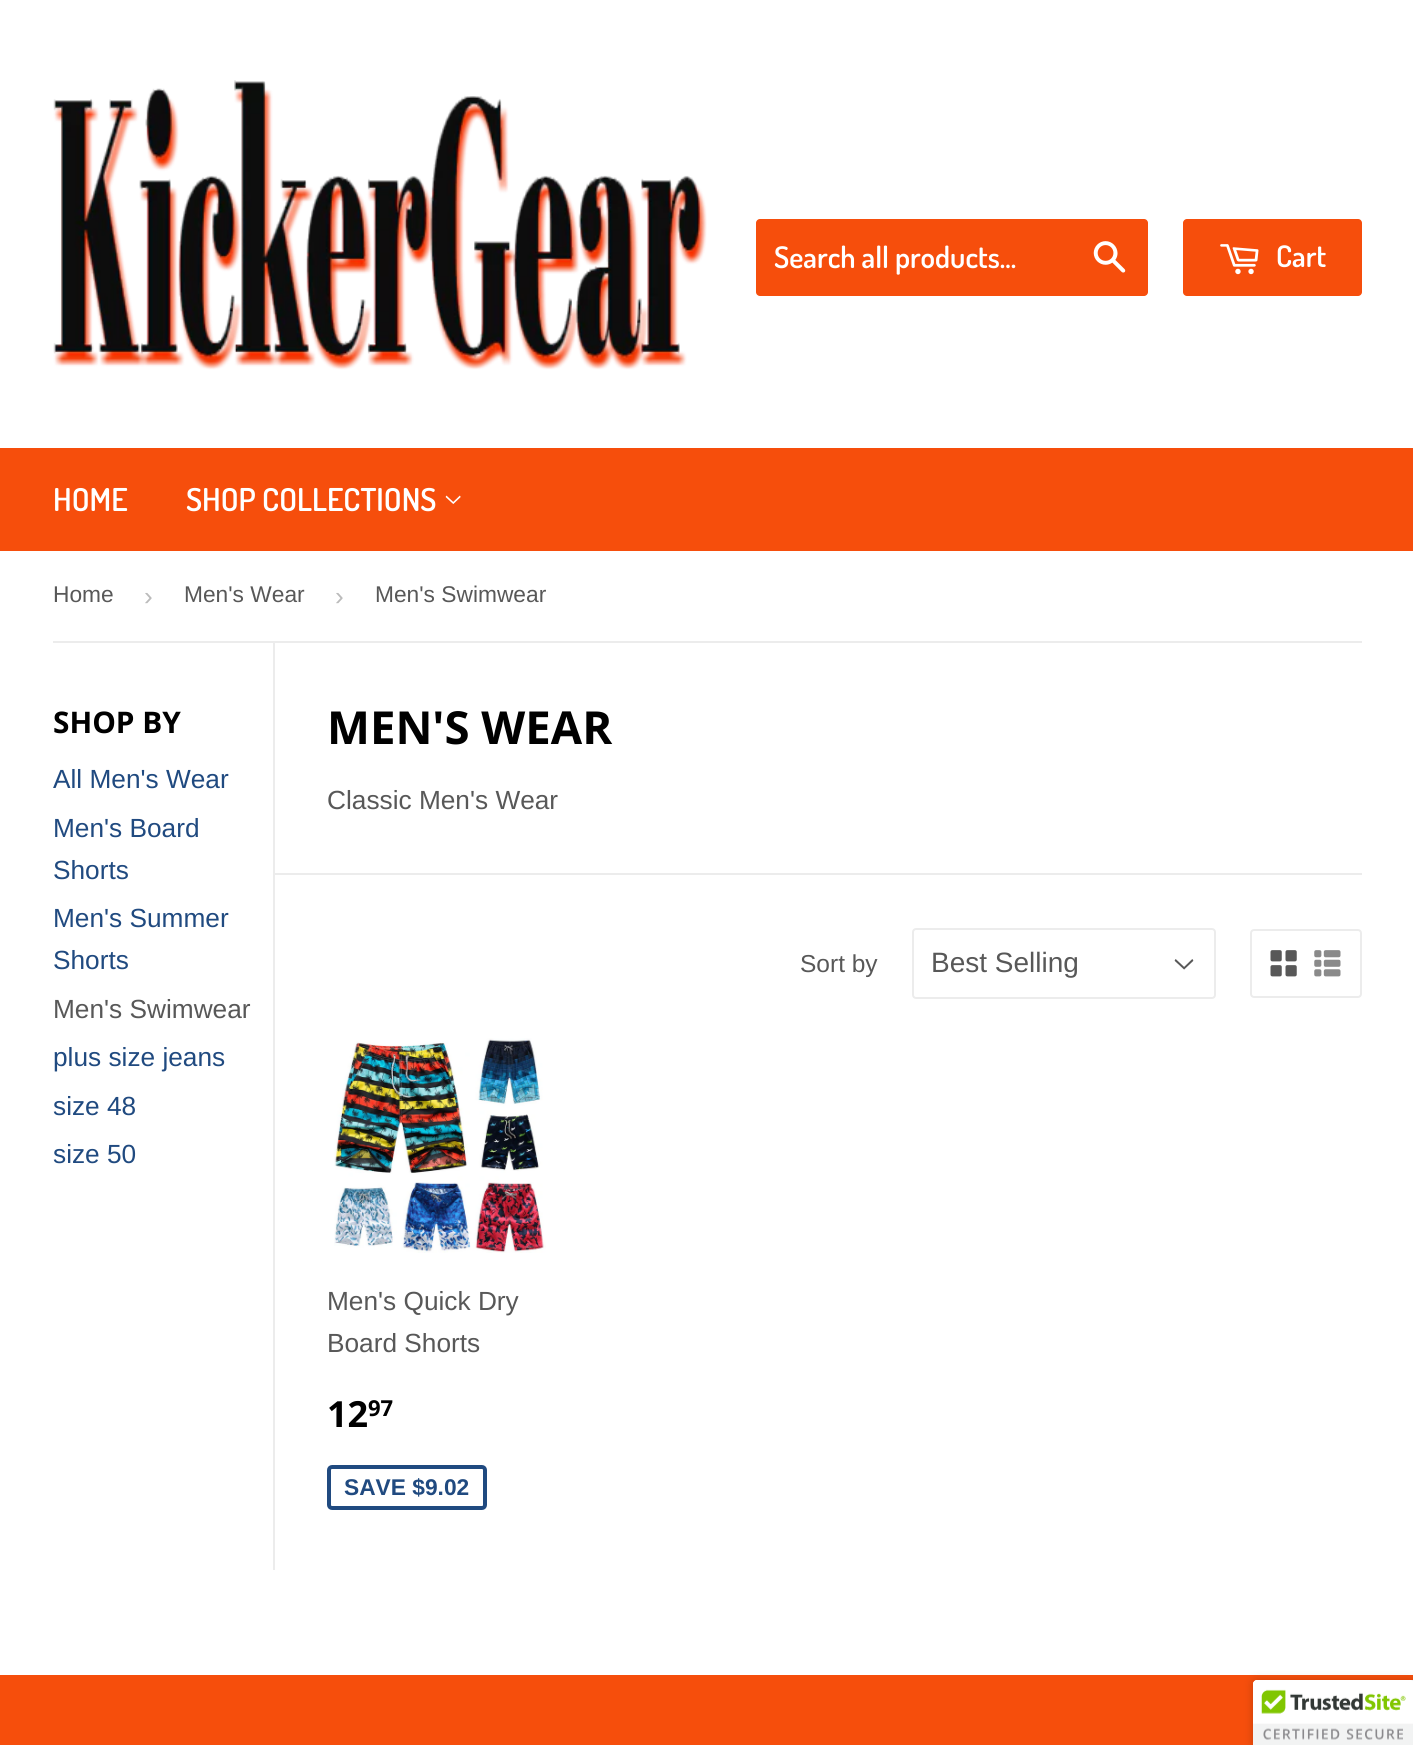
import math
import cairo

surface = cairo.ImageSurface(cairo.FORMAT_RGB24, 1413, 1745)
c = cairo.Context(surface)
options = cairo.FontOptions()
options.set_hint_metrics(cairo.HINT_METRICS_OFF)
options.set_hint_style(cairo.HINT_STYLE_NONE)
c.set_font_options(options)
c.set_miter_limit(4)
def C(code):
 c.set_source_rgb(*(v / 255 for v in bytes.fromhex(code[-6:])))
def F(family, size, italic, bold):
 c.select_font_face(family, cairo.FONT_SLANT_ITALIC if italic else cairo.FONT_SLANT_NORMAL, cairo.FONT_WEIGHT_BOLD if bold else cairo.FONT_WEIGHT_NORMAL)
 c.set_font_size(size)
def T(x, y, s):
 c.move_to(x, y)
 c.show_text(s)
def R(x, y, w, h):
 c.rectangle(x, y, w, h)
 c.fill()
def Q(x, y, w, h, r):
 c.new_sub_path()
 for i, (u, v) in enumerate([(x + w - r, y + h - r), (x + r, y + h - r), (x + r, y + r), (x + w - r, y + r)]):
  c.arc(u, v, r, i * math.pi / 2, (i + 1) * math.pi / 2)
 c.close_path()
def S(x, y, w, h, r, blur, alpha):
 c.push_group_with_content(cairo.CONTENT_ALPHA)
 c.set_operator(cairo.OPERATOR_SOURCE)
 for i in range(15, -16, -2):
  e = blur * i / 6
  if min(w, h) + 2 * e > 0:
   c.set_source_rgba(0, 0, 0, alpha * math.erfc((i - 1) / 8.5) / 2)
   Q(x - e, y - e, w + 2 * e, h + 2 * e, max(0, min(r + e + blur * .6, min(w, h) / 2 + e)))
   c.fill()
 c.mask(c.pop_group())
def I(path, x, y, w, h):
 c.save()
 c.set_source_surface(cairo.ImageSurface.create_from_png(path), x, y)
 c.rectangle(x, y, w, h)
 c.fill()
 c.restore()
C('ffffff')
c.paint()
I('1.png',53,80,654,290)
C('f64e0c')
Q(756,219,392,77,4)
c.fill()
F('Dosis SemiBold',29.75,0,0)
C('ffffff')
T(774,268,'Search all products...')
I('2.png',1093,241,33,32)
C('f64e0c')
Q(1183,219,179,77,4)
c.fill()
I('3.png',1220,244,39,31)
C('ffffff')
T(1276,267,'Cart')
C('f64e0c')
R(0,448,1413,103)
F('Dosis SemiBold',31.5,0,0)
C('ffffff')
T(53,511,'HOME')
T(186,511,'SHOP COLLECTIONS')
I('4.png',445,495,16,9)
C('ececec')
R(53,641,1309,2)
F('Liberation Sans',22.75,0,0)
C('585858')
T(53,602,'Home')
F('Liberation Sans',26.25,0,0)
C('bbbbbb')
T(144,605,'›')
F('Liberation Sans',22.75,0,0)
C('585858')
T(184,602,'Men\'s Wear')
F('Liberation Sans',26.25,0,0)
C('bbbbbb')
T(335,605,'›')
F('Liberation Sans',22.75,0,0)
C('585858')
T(375,602,'Men\'s Swimwear')
F('Open Sans',29.75,0,1)
C('000000')
T(53,733,'SHOP BY')
F('Liberation Sans',26.25,0,0)
C('204a80')
T(53,788,'All Men\'s Wear')
T(53,837,'Men\'s Board')
T(53,879,'Shorts')
T(53,927,'Men\'s Summer')
T(53,969,'Shorts')
C('585858')
T(53,1018,'Men\'s Swimwear')
C('204a80')
T(53,1066,'plus size jeans')
T(53,1115,'size 48')
T(53,1163,'size 50')
C('ececec')
R(273,642,2,928)
F('Open Sans',45.5,0,1)
C('000000')
T(327,744,'MEN\'S WEAR')
F('Liberation Sans',26.25,0,0)
C('585858')
T(327,809,'Classic Men\'s Wear')
C('ececec')
R(275,873,1087,2)
F('Liberation Sans',24.5,0,0)
C('585858')
T(800,972,'Sort by')
I('5.png',1174,959,20,11)
Q(913,929,302,69,3)
C('ececec')
c.stroke()
F('Liberation Sans',28,0,0)
C('585858')
T(931,972,'Best Selling')
Q(1251,930,110,67,3)
C('ececec')
c.stroke()
I('6.png',1270,950,27,27)
I('7.png',1314,950,27,27)
I('8.png',334,1038,212,215)
F('Liberation Sans',26.25,0,0)
C('585858')
T(327,1310,'Men\'s Quick Dry')
T(327,1352,'Board Shorts')
F('Open Sans',36,0,1)
C('000000')
T(327,1427,'12')
F('Open Sans',22,0,1)
T(368,1416,'97')
Q(329,1467,156,41,3)
C('204a80')
c.set_line_width(4)
c.stroke()
F('Liberation Sans',22.75,0,1)
T(344,1495,'SAVE $9.02')
C('f64e0c')
R(0,1675,1413,70)
C('000000')
S(1253,1680,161,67,4,4.5,.2)
C('ffffff')
c.new_path()
c.move_to(1257,1680)
c.line_to(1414,1680)
c.line_to(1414,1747)
c.line_to(1253,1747)
c.line_to(1253,1684)
c.curve_to(1253,1682,1255,1680,1257,1680)
c.close_path()
c.fill()
I('9.png',1253,1680,160,65)
surface.write_to_png('o.png')
